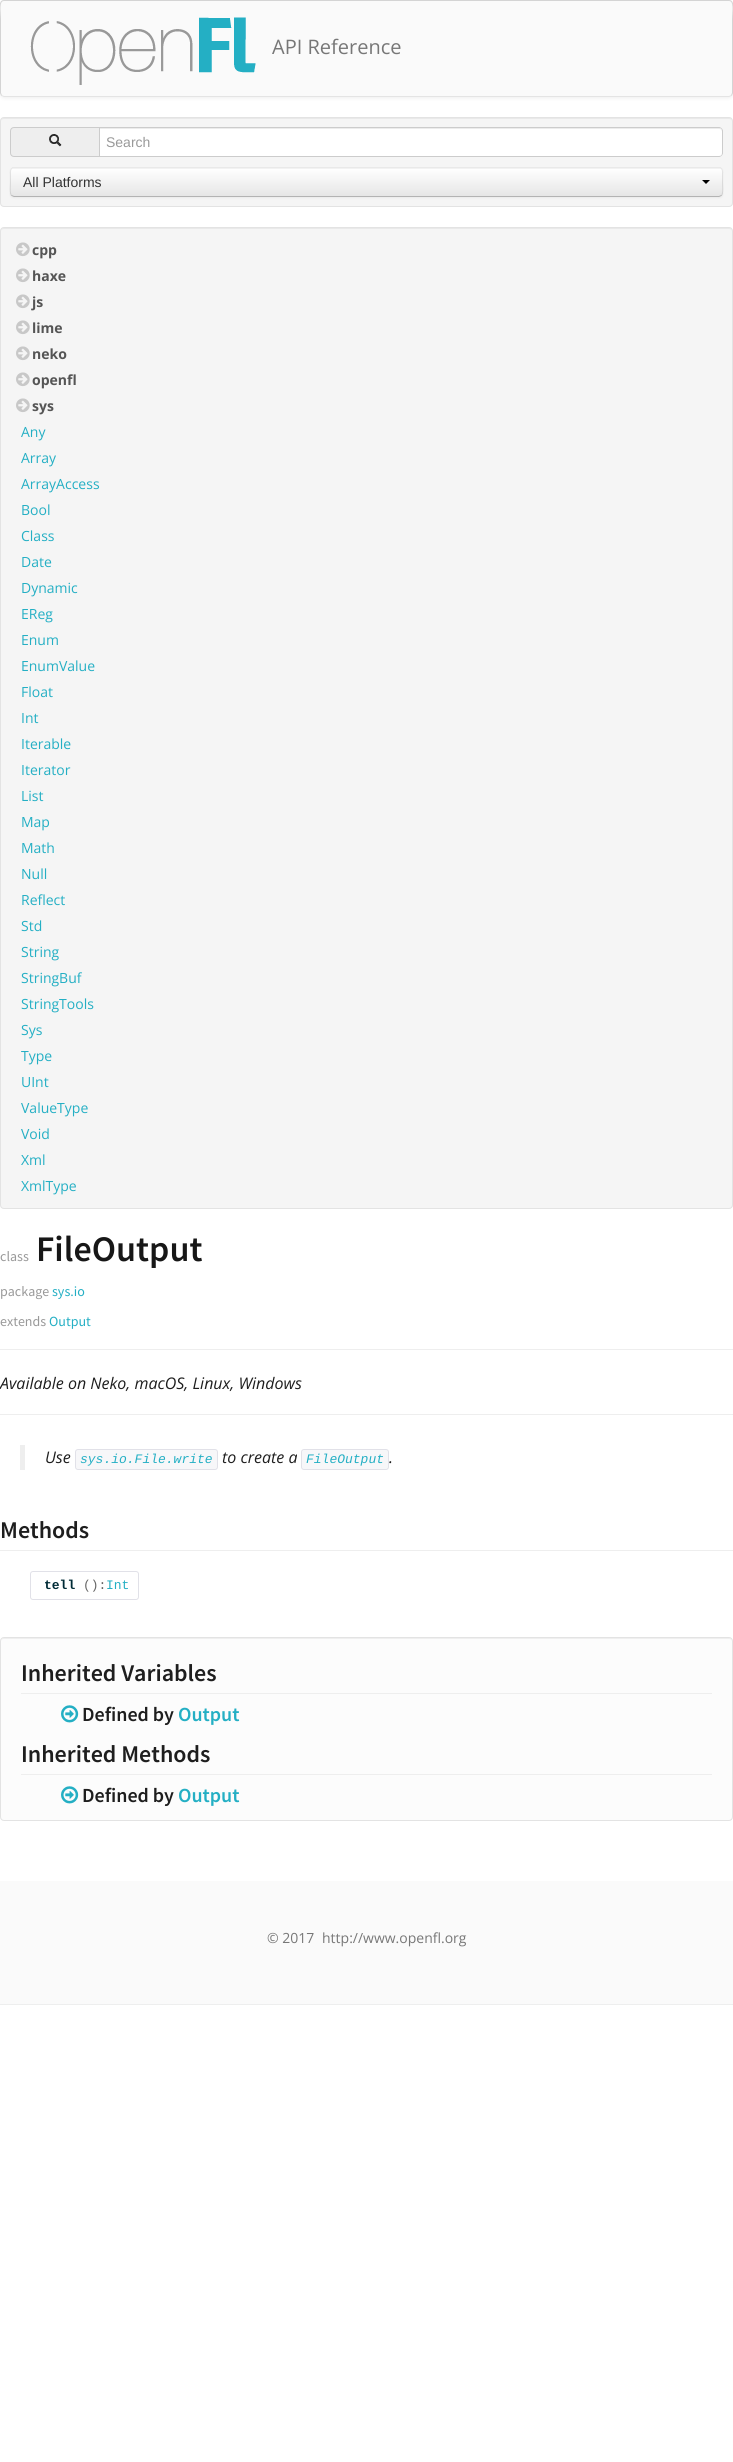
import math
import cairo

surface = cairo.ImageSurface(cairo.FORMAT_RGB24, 733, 2462)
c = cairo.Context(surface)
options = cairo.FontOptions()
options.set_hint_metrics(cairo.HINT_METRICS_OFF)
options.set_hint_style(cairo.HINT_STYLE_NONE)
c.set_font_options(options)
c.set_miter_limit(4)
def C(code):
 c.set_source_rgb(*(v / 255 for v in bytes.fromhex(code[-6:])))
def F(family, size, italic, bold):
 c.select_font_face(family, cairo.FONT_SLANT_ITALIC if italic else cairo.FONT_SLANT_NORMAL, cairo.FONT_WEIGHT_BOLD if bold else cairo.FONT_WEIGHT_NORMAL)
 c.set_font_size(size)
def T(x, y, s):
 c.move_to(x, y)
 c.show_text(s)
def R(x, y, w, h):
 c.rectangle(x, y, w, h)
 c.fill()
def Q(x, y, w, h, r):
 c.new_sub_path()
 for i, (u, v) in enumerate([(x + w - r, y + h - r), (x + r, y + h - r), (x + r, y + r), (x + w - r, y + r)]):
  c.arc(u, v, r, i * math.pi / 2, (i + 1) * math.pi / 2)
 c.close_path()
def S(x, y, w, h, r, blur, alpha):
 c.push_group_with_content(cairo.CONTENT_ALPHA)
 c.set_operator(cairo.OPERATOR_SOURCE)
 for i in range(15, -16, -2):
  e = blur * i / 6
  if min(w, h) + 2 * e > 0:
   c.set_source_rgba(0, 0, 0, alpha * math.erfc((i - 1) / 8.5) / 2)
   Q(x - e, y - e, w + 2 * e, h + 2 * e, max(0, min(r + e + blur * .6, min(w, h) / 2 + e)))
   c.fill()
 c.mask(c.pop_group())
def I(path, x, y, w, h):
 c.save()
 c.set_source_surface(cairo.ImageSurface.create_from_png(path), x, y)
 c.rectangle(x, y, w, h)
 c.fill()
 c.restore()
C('ffffff')
c.paint()
C('000000')
S(0,1,733,97,4,2,.07)
C('fafafa')
Q(0,0,733,97,4)
c.fill()
c.new_path()
c.move_to(731.5,95.5)
c.line_to(729,96.5)
c.line_to(4,96.5)
c.line_to(1.5,95.5)
C('e4e4e4')
c.set_line_width(1)
c.stroke()
c.new_path()
c.move_to(1.5,95.5)
c.line_to(.5,93)
c.line_to(.5,19)
c.curve_to(.5,12,-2,.5,4,.5)
c.line_to(729,.5)
c.curve_to(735,.5,732.5,12,732.5,19)
c.line_to(732.5,93)
c.line_to(731.5,95.5)
C('d4d4d4')
c.stroke()
I('1.png',30,17,226,68)
F('Open Sans',20,0,0)
C('777777')
T(272,54,'API Reference')
C('f5f5f5')
Q(0,117,733,90,4)
c.fill()
C('e9e9e9')
c.new_path()
c.move_to(4,119)
c.line_to(729,119)
c.curve_to(731,119,732,120,732,122)
c.curve_to(732,120,731,118,729,118)
c.line_to(4,118)
c.curve_to(2,118,1,120,1,122)
c.curve_to(1,120,2,119,4,119)
c.close_path()
c.fill()
Q(.5,117.5,732,89,3.5)
C('e3e3e3')
c.stroke()
C('eeeeee')
c.new_path()
c.move_to(14,127.5)
c.line_to(99.5,127.5)
c.line_to(99.5,156.5)
c.line_to(14,156.5)
c.curve_to(12,156.5,10.5,155,10.5,153)
c.line_to(10.5,131)
c.curve_to(10.5,129,12,127.5,14,127.5)
c.close_path()
c.fill_preserve()
C('cccccc')
c.stroke()
I('2.png',49,134,13,13)
C('ffffff')
c.new_path()
c.move_to(100,127)
c.line_to(719,127)
c.curve_to(721,127,723,129,723,131)
c.line_to(723,153)
c.curve_to(723,155,721,157,719,157)
c.line_to(100,157)
c.close_path()
c.fill()
C('ececec')
c.new_path()
c.move_to(100,129)
c.line_to(719,129)
c.curve_to(721,129,722,130,722,132)
c.line_to(722,131)
c.curve_to(722,129,721,128,719,128)
c.line_to(100,128)
c.close_path()
c.fill()
C('cccccc')
c.set_fill_rule(cairo.FILL_RULE_EVEN_ODD)
c.new_path()
c.move_to(100,127)
c.line_to(719,127)
c.curve_to(721,127,723,129,723,131)
c.line_to(723,153)
c.curve_to(723,155,721,157,719,157)
c.line_to(100,157)
c.close_path()
c.move_to(100,128)
c.line_to(719,128)
c.curve_to(721,128,722,129,722,131)
c.line_to(722,153)
c.curve_to(722,155,721,156,719,156)
c.line_to(100,156)
c.close_path()
c.fill()
F('Liberation Sans',14,0,0)
C('999999')
T(106,147,'Search')
C('000000')
S(10,168,713,30,4,1,.05)
C('f5f5f5')
Q(10,167,713,30,4)
c.fill()
c.save()
c.set_fill_rule(cairo.FILL_RULE_WINDING)
Q(10,167,713,30,4)
c.clip()
gradient = cairo.LinearGradient(367,168,367,196)
gradient.add_color_stop_rgba(0,1,1,1,1)
gradient.add_color_stop_rgba(1,0.902,0.902,0.902,1)
c.set_source(gradient)
R(10,168,713,28)
c.restore()
c.new_path()
c.move_to(721.5,195.5)
c.line_to(719,196.5)
c.line_to(14,196.5)
c.line_to(11.5,195.5)
C('b3b3b3')
c.stroke()
c.new_path()
c.move_to(11.5,195.5)
c.curve_to(9.5,193.5,10.5,185,10.5,182)
c.line_to(10.5,174.5)
c.curve_to(10.5,172.5,10,169,12.5,168)
c.line_to(720.5,168)
c.curve_to(723,169,722.5,172.5,722.5,174.5)
c.line_to(722.5,182)
c.curve_to(722.5,185,723.5,193.5,721.5,195.5)
c.set_source_rgba(0,0,0,0.1)
c.stroke()
C('333333')
T(23,187,'All Platforms')
C('000000')
c.set_fill_rule(cairo.FILL_RULE_WINDING)
c.new_path()
c.move_to(702,180)
c.line_to(710,180)
c.line_to(706,184)
c.close_path()
c.fill()
C('f5f5f5')
Q(0,227,733,982,4)
c.fill()
C('e9e9e9')
c.new_path()
c.move_to(4,229)
c.line_to(729,229)
c.curve_to(731,229,732,230,732,232)
c.curve_to(732,230,731,228,729,228)
c.line_to(4,228)
c.curve_to(2,228,1,230,1,232)
c.curve_to(1,230,2,229,4,229)
c.close_path()
c.fill()
Q(.5,227.5,732,981,3.5)
C('e3e3e3')
c.stroke()
I('3.png',16,242,14,15)
F('Open Sans',14,0,1)
C('555555')
T(32,255,'cpp')
I('3.png',16,268,14,15)
T(32,281,'haxe')
I('3.png',16,294,14,15)
T(32,307,'js')
I('3.png',16,320,14,15)
T(32,333,'lime')
I('3.png',16,346,14,15)
T(32,359,'neko')
I('3.png',16,372,14,15)
T(32,385,'openfl')
I('3.png',16,398,14,15)
T(32,411,'sys')
F('Open Sans',14,0,0)
C('24afc4')
T(21,437,'Any')
T(21,463,'Array')
T(21,489,'ArrayAccess')
T(21,515,'Bool')
T(21,541,'Class')
T(21,567,'Date')
T(21,593,'Dynamic')
T(21,619,'EReg')
T(21,645,'Enum')
T(21,671,'EnumValue')
T(21,697,'Float')
T(21,723,'Int')
T(21,749,'Iterable')
T(21,775,'Iterator')
T(21,801,'List')
T(21,827,'Map')
T(21,853,'Math')
T(21,879,'Null')
T(21,905,'Reflect')
T(21,931,'Std')
T(21,957,'String')
T(21,983,'StringBuf')
T(21,1009,'StringTools')
T(21,1035,'Sys')
T(21,1061,'Type')
T(21,1087,'UInt')
T(21,1113,'ValueType')
T(21,1139,'Void')
T(21,1165,'Xml')
T(21,1191,'XmlType')
C('eeeeee')
R(0,1414,733,1)
F('Source Sans Pro',14,0,0)
C('999999')
T(0,1261,'class')
F('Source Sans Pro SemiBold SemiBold',36,0,0)
C('171717')
T(36,1261,'FileOutput')
F('Source Sans Pro',14,0,0)
C('999999')
T(0,1296,'package')
C('24afc4')
T(52,1296,'sys.io')
C('999999')
T(0,1326,'extends')
C('24afc4')
T(49,1326,'Output')
C('eeeeee')
R(0,1349,733,1)
F('Open Sans',16,1,0)
C('1e1e1e')
T(0,1389,'Available on Neko, macOS, Linux, Windows')
C('eeeeee')
R(20,1445,5,25)
C('1e1e1e')
T(45,1463,'Use')
C('f7f7f9')
Q(75.5,1449.5,142,20,2.5)
c.fill_preserve()
C('e1e1e8')
c.stroke()
F('Liberation Mono',13,1,0)
C('24afc4')
T(80,1463,'sys.io.File.write')
F('Open Sans',16,1,0)
C('1e1e1e')
T(222,1463,'to create a')
C('f7f7f9')
Q(301.5,1449.5,87,20,2.5)
c.fill_preserve()
C('e1e1e8')
c.stroke()
F('Liberation Mono',13,1,0)
C('24afc4')
T(306,1463,'FileOutput')
F('Open Sans',16,1,0)
C('1e1e1e')
T(389,1463,'.')
C('eeeeee')
R(0,1550,733,1)
F('Source Sans Pro SemiBold SemiBold',24,0,0)
C('1e1e1e')
T(0,1538,'Methods')
Q(30.5,1571.5,108,28,2.5)
C('e1e1e8')
c.stroke()
F('Liberation Mono',13,0,1)
C('002b36')
T(44,1589,'tell')
F('Liberation Mono',13,0,0)
C('666666')
T(83,1589,'():')
C('24afc4')
T(106,1589,'Int')
C('fcfcfc')
Q(0,1637,733,184,4)
c.fill()
C('efefef')
c.new_path()
c.move_to(4,1639)
c.line_to(729,1639)
c.curve_to(731,1639,732,1640,732,1642)
c.curve_to(732,1640,731,1638,729,1638)
c.line_to(4,1638)
c.curve_to(2,1638,1,1640,1,1642)
c.curve_to(1,1640,2,1639,4,1639)
c.close_path()
c.fill()
Q(.5,1637.5,732,183,3.5)
C('e3e3e3')
c.stroke()
C('eeeeee')
R(21,1693,691,1)
F('Source Sans Pro SemiBold SemiBold',24,0,0)
C('1e1e1e')
T(21,1681,'Inherited Variables')
I('4.png',61,1705,18,18)
F('Source Sans Pro SemiBold SemiBold',20,0,0)
T(82,1721,'Defined by')
C('24afc4')
T(178,1721,'Output')
C('eeeeee')
R(21,1774,691,1)
F('Source Sans Pro SemiBold SemiBold',24,0,0)
C('1e1e1e')
T(21,1762,'Inherited Methods')
I('4.png',61,1786,18,18)
F('Source Sans Pro SemiBold SemiBold',20,0,0)
T(82,1802,'Defined by')
C('24afc4')
T(178,1802,'Output')
C('fafafa')
R(0,1881,733,123)
C('eeeeee')
R(0,2004,733,1)
F('Open Sans',14,0,0)
C('777777')
T(267,1943,'© 2017')
T(322,1943,'http://www.openfl.org')
surface.write_to_png('o.png')
